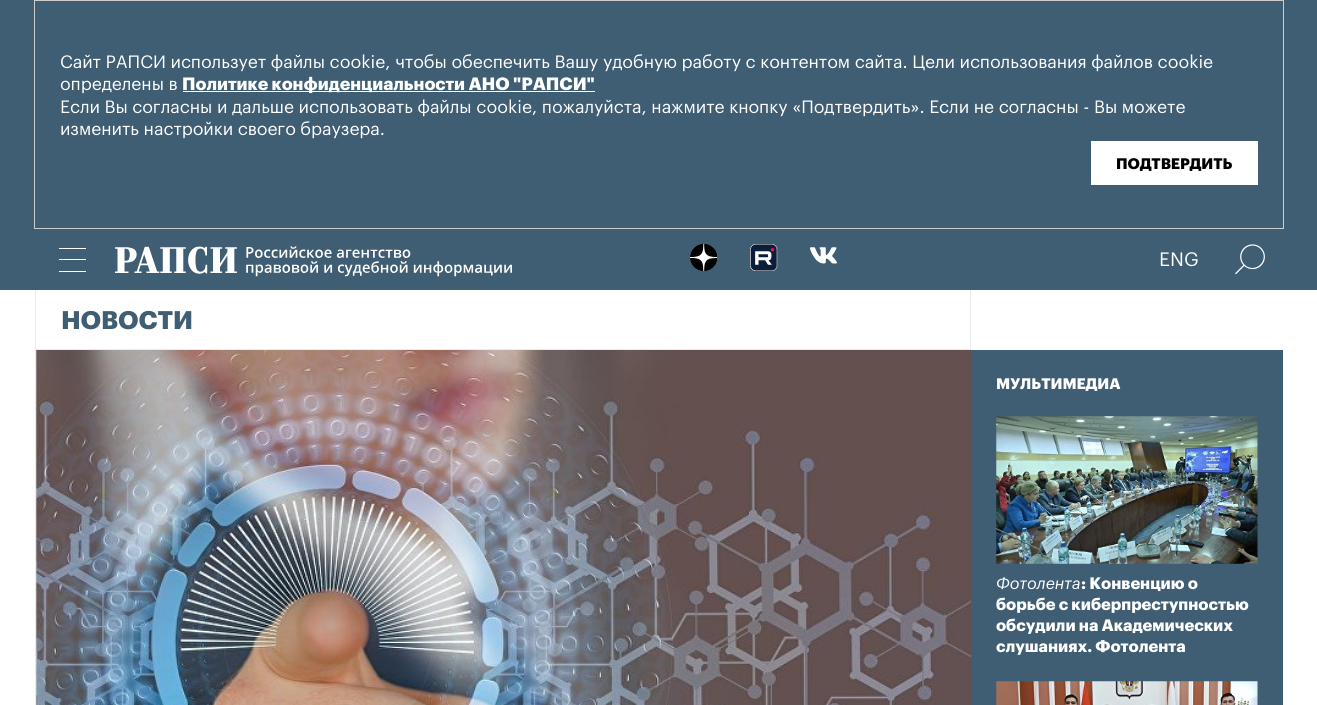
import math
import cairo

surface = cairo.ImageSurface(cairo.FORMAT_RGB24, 1317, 705)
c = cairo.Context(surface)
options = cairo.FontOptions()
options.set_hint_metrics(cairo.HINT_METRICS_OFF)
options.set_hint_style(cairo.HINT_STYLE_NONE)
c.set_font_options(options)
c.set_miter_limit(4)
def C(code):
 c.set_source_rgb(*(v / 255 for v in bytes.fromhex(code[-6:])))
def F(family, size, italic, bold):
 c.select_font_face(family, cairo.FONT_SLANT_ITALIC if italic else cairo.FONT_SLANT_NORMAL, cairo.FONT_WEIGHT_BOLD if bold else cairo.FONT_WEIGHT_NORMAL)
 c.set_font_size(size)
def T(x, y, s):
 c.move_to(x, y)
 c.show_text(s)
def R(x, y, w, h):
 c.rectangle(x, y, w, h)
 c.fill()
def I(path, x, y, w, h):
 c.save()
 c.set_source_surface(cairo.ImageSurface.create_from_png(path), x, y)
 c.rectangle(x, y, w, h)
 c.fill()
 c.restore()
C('ffffff')
c.paint()
C('3f5d73')
R(0,0,1317,290)
c.rectangle(34.5,.5,1249,228)
C('cccccc')
c.set_line_width(1)
c.stroke()
F('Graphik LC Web',17.5,0,0)
C('ffffff')
T(60,68,'Сайт РАПСИ использует файлы cookie, чтобы обеспечить Вашу удобную работу с контентом сайта. Цели использования файлов cookie')
T(60,90,'определены в')
R(183,91,412,1)
F('Graphik LC Web',17.5,0,1)
T(182,90,'Политике конфиденциальности АНО "РАПСИ"')
F('Graphik LC Web',17.5,0,0)
T(60,113,'Если Вы согласны и дальше использовать файлы cookie, пожалуйста, нажмите кнопку «Подтвердить». Если не согласны - Вы можете')
T(60,135,'изменить настройки своего браузера.')
R(1091,141,167,44)
F('Graphik LC Web',15,0,1)
C('000000')
T(1116,169,'ПОДТВЕРДИТЬ')
C('ffffff')
R(59,248,27,1)
R(59,259,27,1)
R(59,271,27,1)
I('1.png',115,246,397,31)
I('2.png',690,244,27,27)
I('3.png',750,244,28,27)
I('4.png',810,247,27,17)
F('Graphik LC Web',19,0,0)
T(1159,266,'ENG')
I('5.png',1235,244,30,31)
C('ebebeb')
R(35,290,1,415)
R(36,349,935,1)
F('Graphik LC Web',25,0,1)
C('3f5d73')
T(61,329,'НОВОСТИ')
C('ebebeb')
R(970,290,1,60)
C('3f5d73')
R(971,350,312,355)
I('6.png',36,350,936,355)
F('Graphik LC Web',15,0,1)
C('ffffff')
T(996,389,'МУЛЬТИМЕДИА')
I('7.png',996,416,262,148)
F('Graphik LC Web',16.25,1,0)
T(996,589,'Фотолента')
F('Graphik LC Web',16.25,0,1)
T(1081,589,': Конвенцию о')
T(996,610,'борьбе с киберпреступностью')
T(996,631,'обсудили на Академических')
T(996,652,'слушаниях. Фотолента')
I('8.png',996,681,262,24)
surface.write_to_png('o.png')
